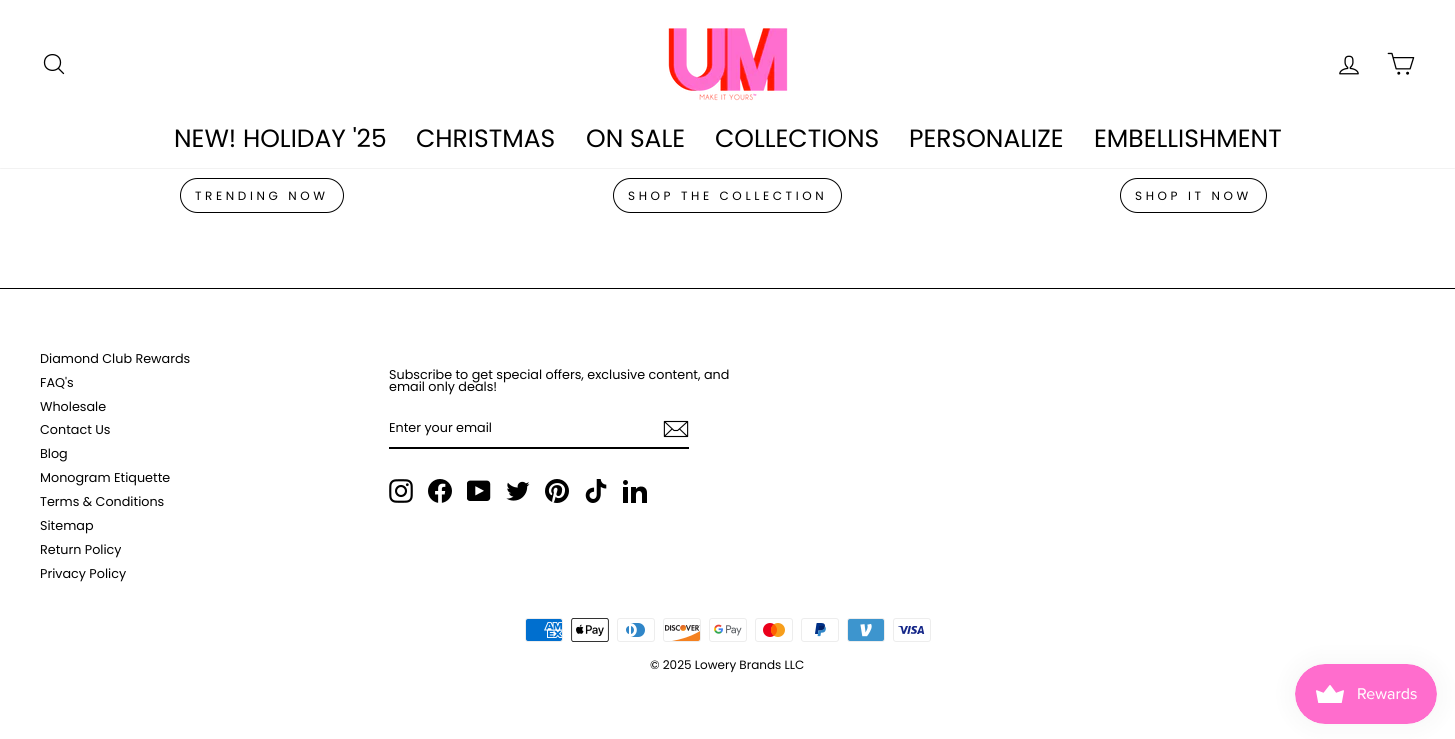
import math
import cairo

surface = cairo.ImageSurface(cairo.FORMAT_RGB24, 1455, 739)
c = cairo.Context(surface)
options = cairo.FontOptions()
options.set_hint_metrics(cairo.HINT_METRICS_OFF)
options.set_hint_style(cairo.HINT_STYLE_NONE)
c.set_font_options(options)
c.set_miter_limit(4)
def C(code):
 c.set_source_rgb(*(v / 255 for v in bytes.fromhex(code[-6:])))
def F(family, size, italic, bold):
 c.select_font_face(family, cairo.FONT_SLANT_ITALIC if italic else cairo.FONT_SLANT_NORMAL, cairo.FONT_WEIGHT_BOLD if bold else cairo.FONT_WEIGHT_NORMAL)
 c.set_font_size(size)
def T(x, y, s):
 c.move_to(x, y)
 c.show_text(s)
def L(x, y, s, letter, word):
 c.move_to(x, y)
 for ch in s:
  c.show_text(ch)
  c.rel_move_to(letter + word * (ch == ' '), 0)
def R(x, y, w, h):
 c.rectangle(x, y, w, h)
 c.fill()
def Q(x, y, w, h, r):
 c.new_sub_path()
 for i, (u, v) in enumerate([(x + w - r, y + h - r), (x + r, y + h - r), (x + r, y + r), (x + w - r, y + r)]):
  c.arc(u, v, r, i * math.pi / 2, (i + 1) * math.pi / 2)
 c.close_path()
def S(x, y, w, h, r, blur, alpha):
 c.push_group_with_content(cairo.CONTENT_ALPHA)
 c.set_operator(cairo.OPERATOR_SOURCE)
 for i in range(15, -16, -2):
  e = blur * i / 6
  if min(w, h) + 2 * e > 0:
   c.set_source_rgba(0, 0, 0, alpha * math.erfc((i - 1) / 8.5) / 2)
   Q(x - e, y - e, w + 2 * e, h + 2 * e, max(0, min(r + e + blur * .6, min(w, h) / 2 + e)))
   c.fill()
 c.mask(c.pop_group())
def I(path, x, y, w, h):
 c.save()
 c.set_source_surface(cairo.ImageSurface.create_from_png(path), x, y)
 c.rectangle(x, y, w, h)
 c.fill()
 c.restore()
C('ffffff')
c.paint()
C('000000')
S(0,0,1455,168,0,.5,.2)
C('ffffff')
R(0,0,1455,168)
c.new_path()
c.move_to(60.5,62.5)
c.curve_to(60.5,73,44.5,73,44.5,62.5)
c.curve_to(44.5,52,60.5,52,60.5,62.5)
c.close_path()
c.move_to(63.5,73.5)
c.line_to(58.5,68.5)
C('000000')
c.set_line_width(1.3)
c.set_line_cap(cairo.LINE_CAP_ROUND)
c.set_line_join(cairo.LINE_JOIN_ROUND)
c.stroke()
I('1.png',668,28,120,73)
I('2.png',1339,55,20,20)
I('3.png',1387,52,28,23)
F('Poppins',25,0,0)
T(174,147,'NEW! HOLIDAY \'25')
T(416,147,'CHRISTMAS')
T(586,147,'ON SALE')
T(715,147,'COLLECTIONS')
T(909,147,'PERSONALIZE')
T(1094,147,'EMBELLISHMENT')
Q(180.5,178.5,163,34,17)
c.set_line_width(1)
c.set_line_cap(cairo.LINE_CAP_BUTT)
c.set_line_join(cairo.LINE_JOIN_MITER)
c.stroke()
F('Poppins',12,0,0)
L(195,200,'TRENDING NOW',3.6,0)
Q(613.5,178.5,228,34,17)
c.stroke()
L(628,200,'SHOP THE COLLECTION',3.6,0)
Q(1120.5,178.5,146,34,17)
c.stroke()
L(1135,200,'SHOP IT NOW',3.6,0)
R(0,288,1455,1)
F('Poppins',12.75,0,0)
T(40,363,'Diamond Club Rewards')
T(40,387,'FAQ\'s')
T(40,411,'Wholesale')
T(40,434,'Contact Us')
T(40,458,'Blog')
T(40,482,'Monogram Etiquette')
T(40,506,'Terms & Conditions')
T(40,530,'Sitemap')
T(40,554,'Return Policy')
T(40,578,'Privacy Policy')
T(389,379,'Subscribe to get special offers, exclusive content, and')
T(389,391,'email only deals!')
R(389,447,300,2)
T(389,432,'Enter your email')
I('4.png',663,420,26,18)
I('5.png',389,479,24,24)
I('6.png',428,479,24,24)
I('7.png',467,480,24,21)
I('8.png',506,481,24,20)
I('9.png',545,479,24,24)
I('10.png',585,479,22,24)
I('11.png',623,480,24,23)
I('12.png',525,618,38,24)
I('13.png',571,618,38,24)
I('14.png',617,618,38,24)
I('15.png',663,618,38,24)
I('16.png',709,618,38,24)
I('17.png',755,618,38,24)
I('18.png',801,618,38,24)
I('19.png',847,618,38,24)
I('20.png',893,618,38,24)
F('Poppins',12,0,0)
T(650,669,'© 2025 Lowery Brands LLC')
C('000000')
S(1295,664,142,60,30,12.5,.05)
I('21.png',1295,664,142,60)
surface.write_to_png('o.png')
